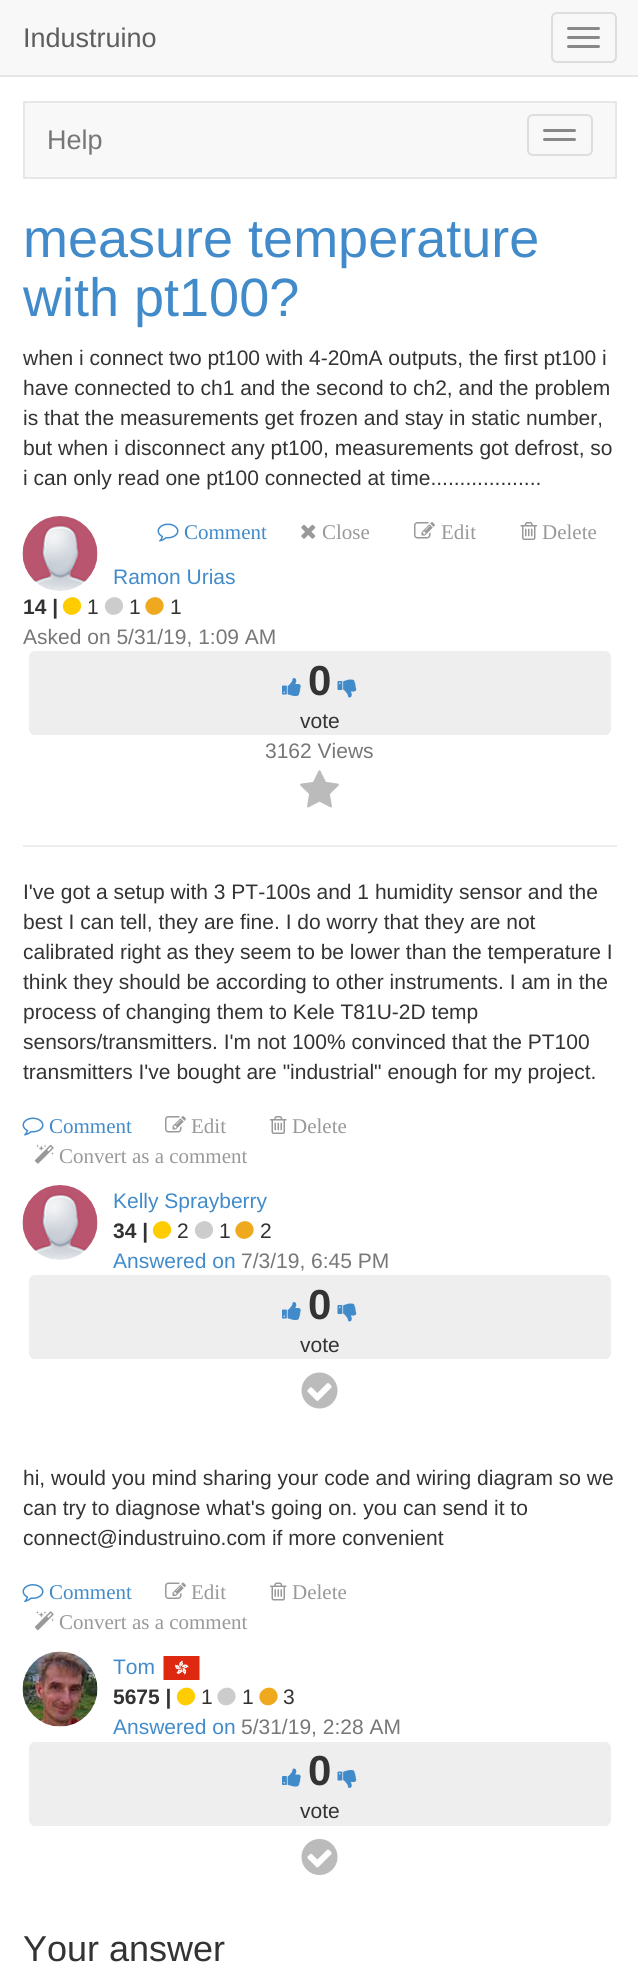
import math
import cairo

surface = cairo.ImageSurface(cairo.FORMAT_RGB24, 638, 1982)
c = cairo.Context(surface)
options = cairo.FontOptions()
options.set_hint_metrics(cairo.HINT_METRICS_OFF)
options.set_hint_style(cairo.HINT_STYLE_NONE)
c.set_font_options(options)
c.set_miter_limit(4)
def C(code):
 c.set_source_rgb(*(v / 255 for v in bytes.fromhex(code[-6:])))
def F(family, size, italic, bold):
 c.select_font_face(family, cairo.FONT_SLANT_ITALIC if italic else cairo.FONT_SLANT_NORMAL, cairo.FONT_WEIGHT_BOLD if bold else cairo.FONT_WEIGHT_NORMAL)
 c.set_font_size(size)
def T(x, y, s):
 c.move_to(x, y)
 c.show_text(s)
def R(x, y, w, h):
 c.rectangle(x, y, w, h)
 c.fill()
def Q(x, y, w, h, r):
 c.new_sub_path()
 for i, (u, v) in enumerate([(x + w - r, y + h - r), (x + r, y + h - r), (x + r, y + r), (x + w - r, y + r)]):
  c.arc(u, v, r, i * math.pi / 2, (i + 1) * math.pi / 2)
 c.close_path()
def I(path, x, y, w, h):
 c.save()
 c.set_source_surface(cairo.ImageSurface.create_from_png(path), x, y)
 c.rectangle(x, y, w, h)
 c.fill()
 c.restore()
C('ffffff')
c.paint()
C('f8f8f8')
R(0,0,638,75)
C('e7e7e7')
R(0,75,638,2)
F('Liberation Sans',27,0,0)
C('5e5e5e')
T(23,47,'Industruino')
Q(552,13,64,49,5)
C('dddddd')
c.stroke()
C('888888')
Q(567,27,33,3,1.5)
c.fill()
Q(567,36,33,3,1.5)
c.fill()
Q(567,45,33,3,1.5)
c.fill()
C('f8f8f8')
c.rectangle(24,102,592,76)
c.fill_preserve()
C('e7e7e7')
c.stroke()
C('777777')
T(47,149,'Help')
Q(528,115,64,40,5)
C('dddddd')
c.stroke()
C('888888')
Q(543,129,33,3,1.5)
c.fill()
Q(543,138,33,3,1.5)
c.fill()
F('Liberation Sans',54,0,0)
C('428bca')
T(23,257,'measure temperature')
T(23,316,'with pt100?')
F('Liberation Sans',21,0,0)
C('333333')
T(23,365,'when i connect two pt100 with 4-20mA outputs, the first pt100 i')
T(23,395,'have connected to ch1 and the second to ch2, and the problem')
T(23,425,'is that the measurements get frozen and stay in static number,')
T(23,455,'but when i disconnect any pt100, measurements got defrost, so')
T(23,485,'i can only read one pt100 connected at time...................')
I('1.png',157,523,22,19)
F('Liberation Serif',21,0,0)
C('428bca')
T(184,539,'Comment')
I('2.png',301,524,15,15)
C('999999')
T(322,539,'Close')
I('3.png',414,522,21,17)
T(441,539,'Edit')
I('4.png',520,522,17,18)
T(542,539,'Delete')
I('5.png',22,516,76,75)
F('Liberation Sans',21,0,0)
C('428bca')
T(113,584,'Ramon Urias')
F('Liberation Sans',21,0,1)
C('333333')
T(23,614,'14 |')
C('ffcc00')
c.new_path()
c.move_to(80,601.5)
c.curve_to(85.5,611.5,70,620.5,64,610.5)
c.curve_to(58.5,600.5,74,591.5,80,601.5)
c.close_path()
c.fill()
F('Liberation Sans',21,0,0)
C('333333')
T(87,614,'1')
C('cccccc')
c.new_path()
c.move_to(122,601.5)
c.curve_to(127.5,611.5,112,620.5,106,610.5)
c.curve_to(100.5,600.5,116,591.5,122,601.5)
c.close_path()
c.fill()
C('333333')
T(129,614,'1')
C('eea91e')
c.new_path()
c.move_to(162.5,601.5)
c.curve_to(168,611.5,152.5,620.5,146.5,610.5)
c.curve_to(141,600.5,156.5,591.5,162.5,601.5)
c.close_path()
c.fill()
C('333333')
T(170,614,'1')
C('777777')
T(23,644,'Asked on 5/31/19, 1:09 AM')
C('eeeeee')
Q(29,651,582,84,6)
c.fill()
I('6.png',282,678,19,18)
F('Liberation Sans',42,0,1)
C('333333')
T(308,695,'0')
I('7.png',337,679,20,19)
F('Liberation Sans',21,0,0)
T(300,728,'vote')
C('777777')
T(265,758,'3162 Views')
I('8.png',300,770,39,38)
C('eeeeee')
R(23,845,594,2)
C('333333')
T(23,899,'I\'ve got a setup with 3 PT-100s and 1 humidity sensor and the')
T(23,929,'best I can tell, they are fine. I do worry that they are not')
T(23,959,'calibrated right as they seem to be lower than the temperature I')
T(23,989,'think they should be according to other instruments. I am in the')
T(23,1019,'process of changing them to Kele T81U-2D temp')
T(23,1049,'sensors/transmitters. I\'m not 100% convinced that the PT100')
T(23,1079,'transmitters I\'ve bought are "industrial" enough for my project.')
I('1.png',22,1117,22,19)
F('Liberation Serif',21,0,0)
C('428bca')
T(49,1133,'Comment')
I('3.png',165,1116,21,17)
C('999999')
T(191,1133,'Edit')
I('9.png',270,1116,17,18)
T(292,1133,'Delete')
I('10.png',34,1144,20,20)
T(59,1163,'Convert as a comment')
I('5.png',22,1185,76,75)
F('Liberation Sans',21,0,0)
C('428bca')
T(113,1208,'Kelly Sprayberry')
F('Liberation Sans',21,0,1)
C('333333')
T(113,1238,'34 |')
C('ffcc00')
c.new_path()
c.move_to(170,1225.5)
c.curve_to(175.5,1235.5,160,1244.5,154,1234.5)
c.curve_to(148.5,1224.5,164,1215.5,170,1225.5)
c.close_path()
c.fill()
F('Liberation Sans',21,0,0)
C('333333')
T(177,1238,'2')
C('cccccc')
c.new_path()
c.move_to(212,1225.5)
c.curve_to(217.5,1235.5,202,1244.5,196,1234.5)
c.curve_to(190.5,1224.5,206,1215.5,212,1225.5)
c.close_path()
c.fill()
C('333333')
T(219,1238,'1')
C('eea91e')
c.new_path()
c.move_to(252.5,1225.5)
c.curve_to(258,1235.5,242.5,1244.5,236.5,1234.5)
c.curve_to(231,1224.5,246.5,1215.5,252.5,1225.5)
c.close_path()
c.fill()
C('333333')
T(260,1238,'2')
C('428bca')
T(113,1268,'Answered on')
C('777777')
T(241,1268,'7/3/19, 6:45 PM')
C('eeeeee')
Q(29,1275,582,84,6)
c.fill()
I('6.png',282,1302,19,18)
F('Liberation Sans',42,0,1)
C('333333')
T(308,1319,'0')
I('7.png',337,1303,20,19)
F('Liberation Sans',21,0,0)
T(300,1352,'vote')
I('11.png',301,1372,37,37)
T(23,1485,'hi, would you mind sharing your code and wiring diagram so we')
T(23,1515,'can try to diagnose what\'s going on. you can send it to')
T(23,1545,'connect@industruino.com if more convenient')
I('12.png',22,1584,22,18)
F('Liberation Serif',21,0,0)
C('428bca')
T(49,1599,'Comment')
I('13.png',165,1582,21,17)
C('999999')
T(191,1599,'Edit')
I('14.png',270,1582,17,19)
T(292,1599,'Delete')
I('15.png',34,1611,20,20)
T(59,1629,'Convert as a comment')
I('16.png',22,1651,76,76)
F('Liberation Sans',21,0,0)
C('428bca')
T(113,1674,'Tom')
I('17.png',163,1656,37,24)
F('Liberation Sans',21,0,1)
C('333333')
T(113,1704,'5675 |')
C('ffcc00')
c.new_path()
c.move_to(194,1692)
c.curve_to(199.5,1702,184,1711,178,1701)
c.curve_to(172.5,1691,188,1682,194,1692)
c.close_path()
c.fill()
F('Liberation Sans',21,0,0)
C('333333')
T(201,1704,'1')
C('cccccc')
c.new_path()
c.move_to(234.5,1692)
c.curve_to(240,1702,224.5,1711,218.5,1701)
c.curve_to(213,1691,228.5,1682,234.5,1692)
c.close_path()
c.fill()
C('333333')
T(242,1704,'1')
C('eea91e')
c.new_path()
c.move_to(276.5,1692)
c.curve_to(282,1702,266.5,1711,260.5,1701)
c.curve_to(255,1691,270.5,1682,276.5,1692)
c.close_path()
c.fill()
C('333333')
T(283,1704,'3')
C('428bca')
T(113,1734,'Answered on')
C('777777')
T(241,1734,'5/31/19, 2:28 AM')
C('eeeeee')
Q(29,1742,582,84,6)
c.fill()
I('18.png',282,1768,19,19)
F('Liberation Sans',42,0,1)
C('333333')
T(308,1785,'0')
I('19.png',337,1770,20,18)
F('Liberation Sans',21,0,0)
T(300,1818,'vote')
I('20.png',301,1839,37,36)
F('Liberation Sans',36,0,0)
T(23,1961,'Your answer')
surface.write_to_png('o.png')
